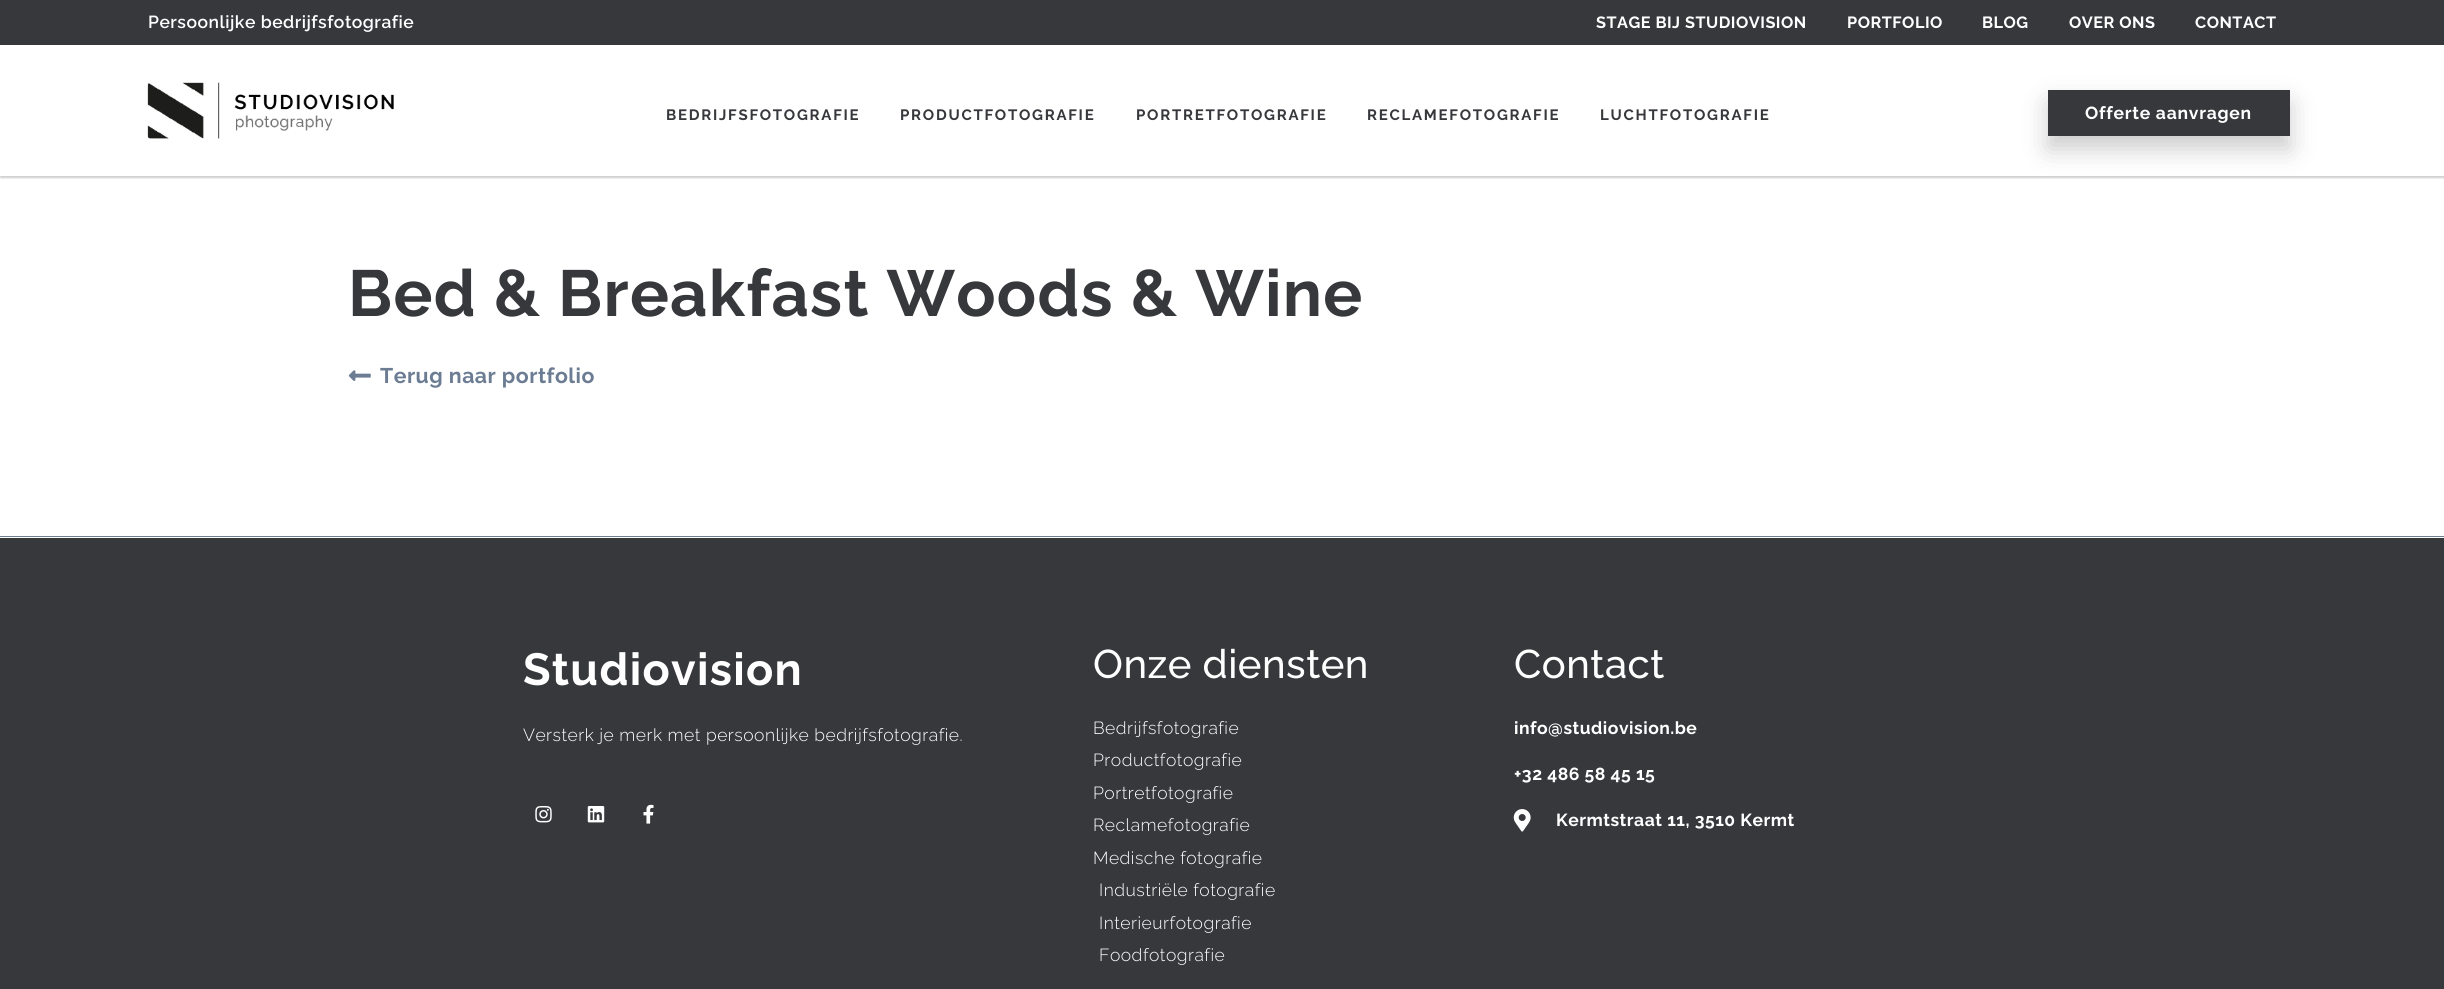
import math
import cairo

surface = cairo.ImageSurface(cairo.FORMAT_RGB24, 2444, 989)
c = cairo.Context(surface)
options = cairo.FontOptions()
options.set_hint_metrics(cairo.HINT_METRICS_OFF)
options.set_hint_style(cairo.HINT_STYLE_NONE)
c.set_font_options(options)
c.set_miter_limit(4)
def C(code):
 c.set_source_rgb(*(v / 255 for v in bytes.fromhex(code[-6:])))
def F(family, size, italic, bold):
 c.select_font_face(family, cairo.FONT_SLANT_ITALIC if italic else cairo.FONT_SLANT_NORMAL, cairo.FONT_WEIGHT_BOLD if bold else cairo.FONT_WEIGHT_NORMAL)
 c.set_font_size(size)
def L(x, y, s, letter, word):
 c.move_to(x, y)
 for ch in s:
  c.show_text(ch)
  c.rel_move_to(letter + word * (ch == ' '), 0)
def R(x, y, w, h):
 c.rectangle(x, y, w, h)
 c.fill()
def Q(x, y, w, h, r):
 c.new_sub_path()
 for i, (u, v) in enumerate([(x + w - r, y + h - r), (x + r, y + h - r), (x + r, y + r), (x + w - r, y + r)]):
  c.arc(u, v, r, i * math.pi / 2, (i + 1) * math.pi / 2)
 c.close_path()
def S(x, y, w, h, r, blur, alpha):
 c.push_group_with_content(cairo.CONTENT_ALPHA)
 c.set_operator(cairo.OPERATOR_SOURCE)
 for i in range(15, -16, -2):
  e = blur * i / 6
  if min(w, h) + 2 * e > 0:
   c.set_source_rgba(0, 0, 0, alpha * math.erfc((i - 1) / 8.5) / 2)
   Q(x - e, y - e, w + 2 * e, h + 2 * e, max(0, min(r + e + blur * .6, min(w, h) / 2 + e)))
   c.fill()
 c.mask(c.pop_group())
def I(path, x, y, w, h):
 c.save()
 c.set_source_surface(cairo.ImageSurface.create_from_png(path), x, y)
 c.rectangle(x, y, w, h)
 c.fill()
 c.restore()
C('ffffff')
c.paint()
C('37383c')
R(0,0,2444,45)
F('Raleway SemiBold',17.5,0,0)
C('ffffff')
L(148,28,'Persoonlijke bedrijfsfotografie',.5,0)
F('Raleway',16.25,0,1)
L(1596,28,'STAGE BIJ STUDIOVISION',.5,0)
L(1847,28,'PORTFOLIO',.5,0)
L(1982,28,'BLOG',.5,0)
L(2069,28,'OVER ONS',.5,0)
L(2195,28,'CONTACT',.5,0)
c.save()
c.rectangle(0,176,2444,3)
c.clip()
C('000000')
S(0,46,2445,132,0,1,.2)
c.restore()
I('1.png',147,82,247,57)
F('Raleway',15,0,1)
C('37383c')
L(666,120,'BEDRIJFSFOTOGRAFIE',1.75,0)
L(900,120,'PRODUCTFOTOGRAFIE',1.75,0)
L(1136,120,'PORTRETFOTOGRAFIE',1.75,0)
L(1367,120,'RECLAMEFOTOGRAFIE',1.75,0)
L(1600,120,'LUCHTFOTOGRAFIE',1.75,0)
C('000000')
S(2048,103,242,46,0,12.5,.2)
C('37383c')
R(2048,90,242,46)
F('Raleway',17.5,0,1)
C('ffffff')
L(2085,119,'Offerte aanvragen',.75,0)
F('Raleway',65,0,1)
C('37383c')
L(348,316,'Bed & Breakfast Woods & Wine',1.25,0)
I('2.png',348,370,23,11)
F('Raleway',21.25,0,1)
C('6b7c93')
L(380,383,'Terug naar portfolio',.5,0)
C('37383c')
R(0,538,2444,451)
C('6b7c93')
R(0,536,2444,1)
F('Raleway',45,0,1)
C('ffffff')
L(523,685,'Studiovision',1.25,0)
F('Raleway Light',17.5,0,0)
L(523,741,'Versterk je merk met persoonlijke bedrijfsfotografie.',.5,0)
I('3.png',535,806,17,17)
I('4.png',587,806,18,17)
I('5.png',643,804,11,20)
F('Raleway Medium',40,0,0)
L(1093,678,'Onze diensten',.5,0)
F('Raleway Light',17.5,0,0)
L(1093,734,'Bedrijfsfotografie',.5,0)
L(1093,766,'Productfotografie',.5,0)
L(1093,799,'Portretfotografie',.5,0)
L(1093,831,'Reclamefotografie',.5,0)
L(1093,864,'Medische fotografie',.5,0)
L(1099,896,'Industriële fotografie',.5,0)
L(1099,929,'Interieurfotografie',.5,0)
L(1099,961,'Foodfotografie',.5,0)
F('Raleway Medium',40,0,0)
L(1514,678,'Contact',.5,0)
F('Raleway',17.5,0,1)
L(1514,734,'info@studiovision.be',.5,0)
L(1514,780,'+32 486 58 45 15',.5,0)
I('6.png',1513,809,18,23)
L(1556,826,'Kermtstraat 11, 3510 Kermt',.5,0)
surface.write_to_png('o.png')
